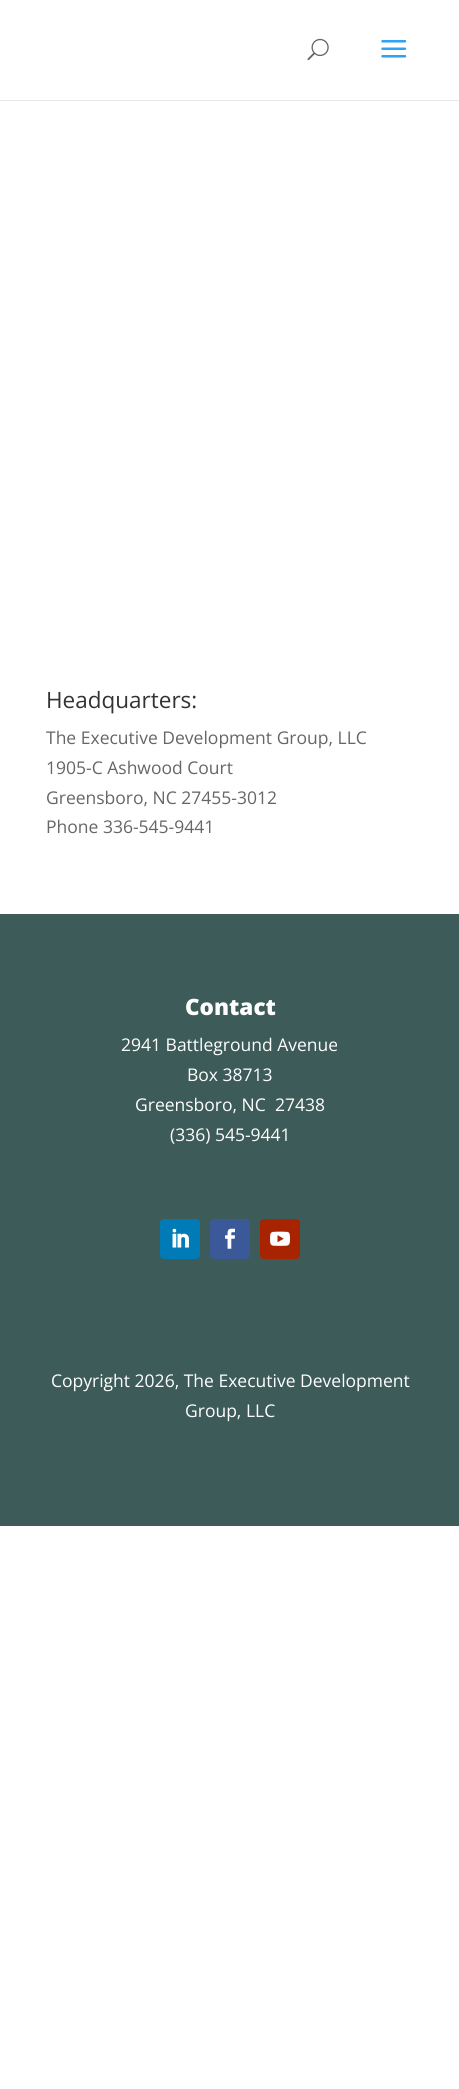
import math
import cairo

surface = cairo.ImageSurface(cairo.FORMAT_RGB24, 459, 2089)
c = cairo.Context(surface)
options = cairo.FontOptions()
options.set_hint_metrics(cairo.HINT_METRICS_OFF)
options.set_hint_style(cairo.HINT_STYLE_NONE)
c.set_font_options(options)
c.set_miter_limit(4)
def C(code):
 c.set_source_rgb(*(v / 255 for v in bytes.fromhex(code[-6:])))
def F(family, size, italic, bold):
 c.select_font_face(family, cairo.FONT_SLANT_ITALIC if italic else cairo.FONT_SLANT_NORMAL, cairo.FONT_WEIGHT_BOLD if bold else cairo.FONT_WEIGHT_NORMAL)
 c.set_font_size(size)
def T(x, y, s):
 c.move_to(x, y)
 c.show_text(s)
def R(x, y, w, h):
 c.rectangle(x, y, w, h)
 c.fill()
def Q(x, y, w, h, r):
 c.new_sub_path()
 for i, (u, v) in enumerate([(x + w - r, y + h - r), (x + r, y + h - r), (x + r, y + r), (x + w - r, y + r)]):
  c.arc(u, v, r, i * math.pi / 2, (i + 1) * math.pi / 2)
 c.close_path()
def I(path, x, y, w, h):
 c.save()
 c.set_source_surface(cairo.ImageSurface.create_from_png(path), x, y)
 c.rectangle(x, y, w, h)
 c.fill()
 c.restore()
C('ffffff')
c.paint()
c.set_source_rgba(0,0,0,0.1)
R(0,100,459,1)
I('1.png',307,38,22,23)
I('2.png',381,40,26,18)
F('Open Sans',22.5,0,0)
C('333333')
T(46,708,'Headquarters:')
F('Open Sans',17.5,0,0)
C('666666')
T(46,744,'The Executive Development Group, LLC')
T(46,774,'1905-C Ashwood Court')
T(46,804,'Greensboro, NC 27455-3012')
T(46,833,'Phone 336-545-9441')
C('3d5b58')
R(0,914,459,612)
F('Open Sans ExtraBold',22.5,0,0)
C('ffffff')
T(185,1015,'Contact')
F('Open Sans',17.5,0,0)
T(121,1051,'2941 Battleground Avenue')
T(187,1081,'Box 38713')
T(135,1111,'Greensboro, NC  27438')
T(170,1141,'(336) 545-9441')
C('007bb6')
Q(160,1219,40,40,4)
c.fill()
I('3.png',172,1228,17,20)
C('3b5998')
Q(210,1219,40,40,4)
c.fill()
I('4.png',225,1228,10,21)
C('a82400')
Q(260,1219,40,40,4)
c.fill()
I('5.png',270,1231,20,15)
C('ffffff')
T(51,1387,'Copyright 2026, The Executive Development')
T(185,1417,'Group, LLC')
surface.write_to_png('o.png')
